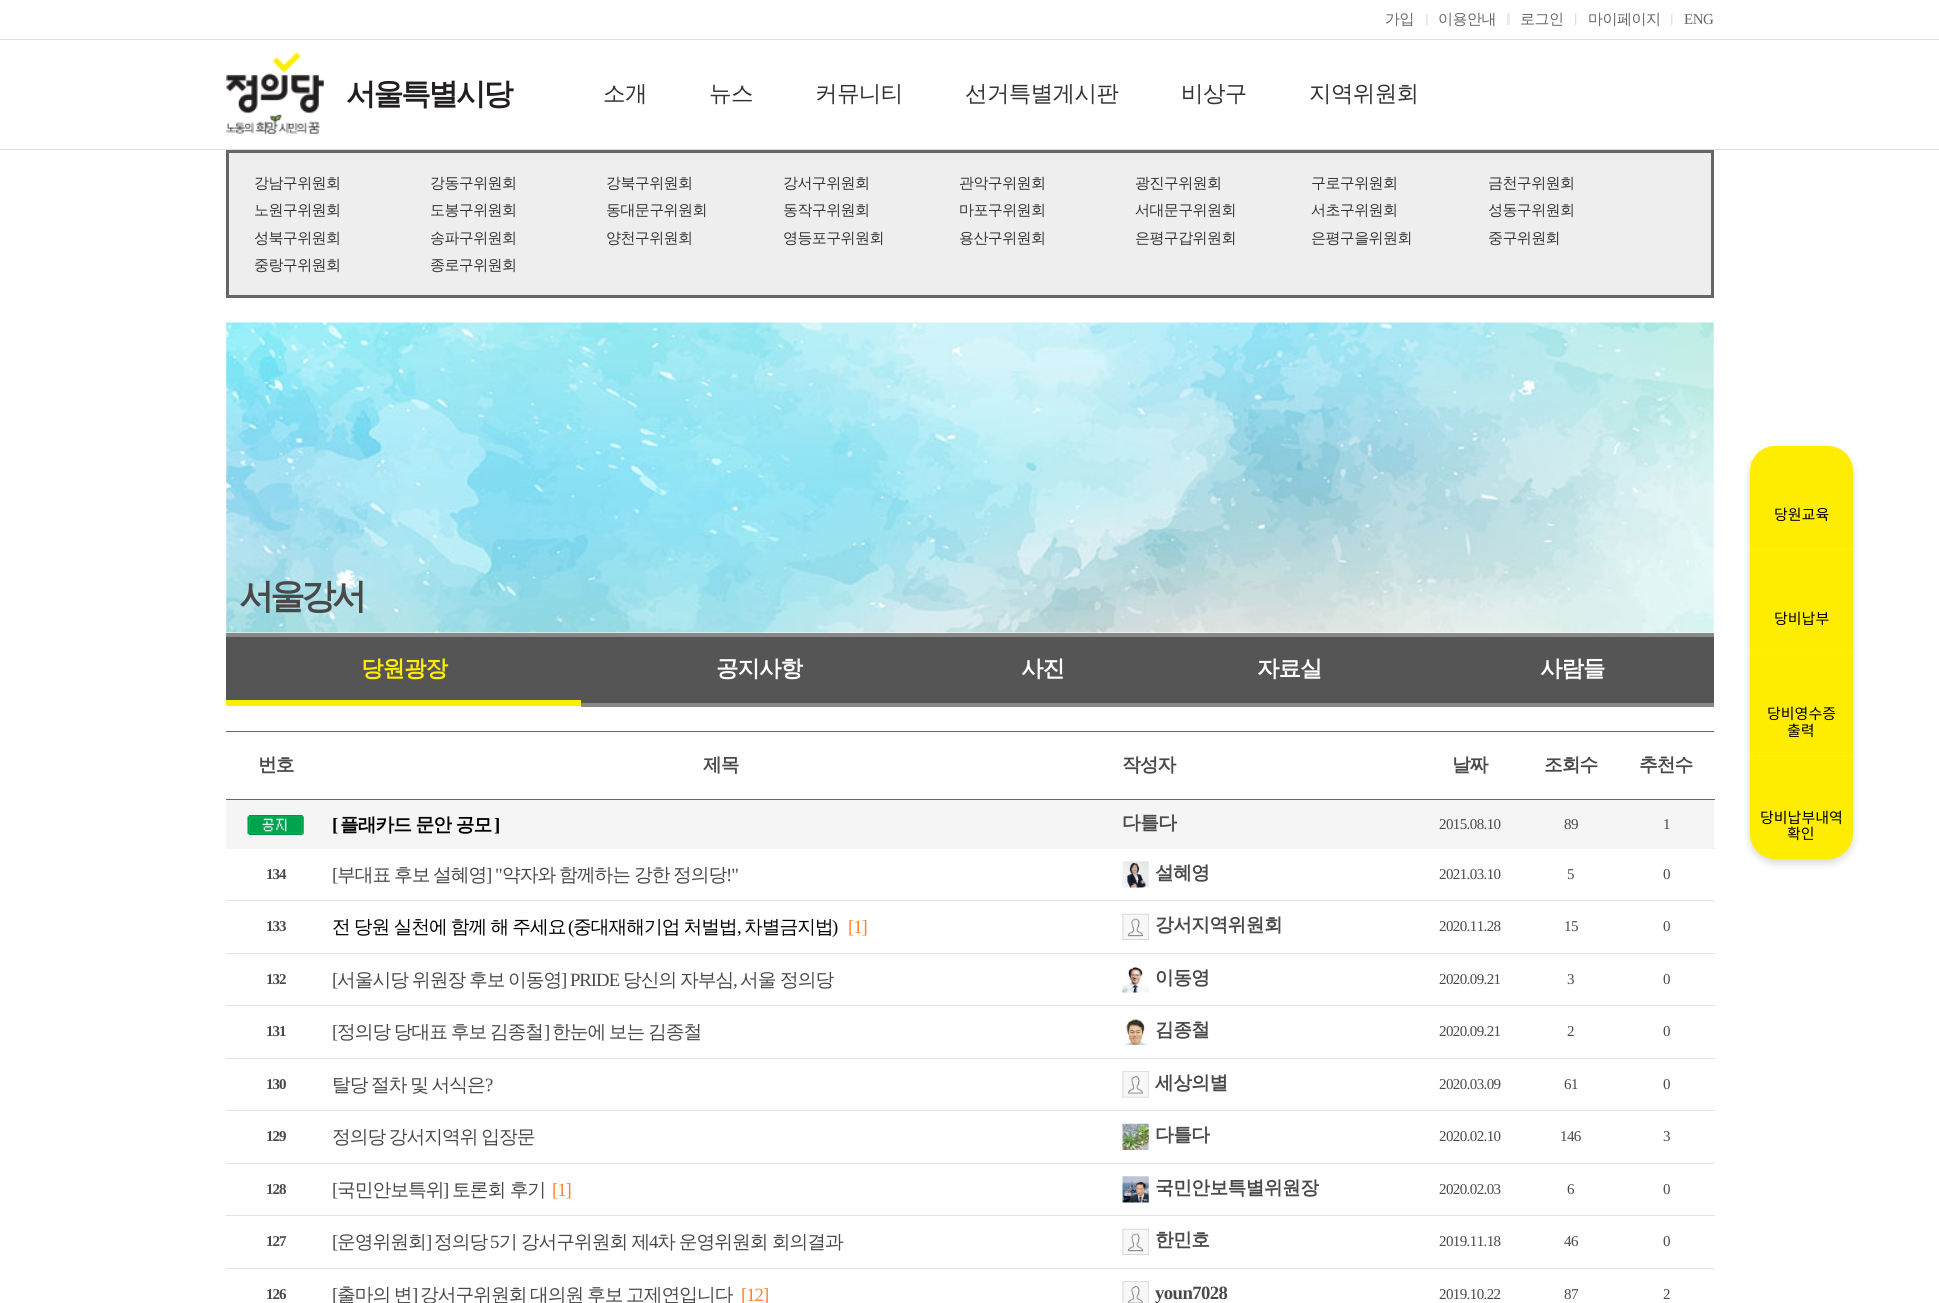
import math
import cairo

surface = cairo.ImageSurface(cairo.FORMAT_RGB24, 1939, 1303)
c = cairo.Context(surface)
options = cairo.FontOptions()
options.set_hint_metrics(cairo.HINT_METRICS_OFF)
options.set_hint_style(cairo.HINT_STYLE_NONE)
c.set_font_options(options)
c.set_miter_limit(4)
def C(code):
 c.set_source_rgb(*(v / 255 for v in bytes.fromhex(code[-6:])))
def F(family, size, italic, bold):
 c.select_font_face(family, cairo.FONT_SLANT_ITALIC if italic else cairo.FONT_SLANT_NORMAL, cairo.FONT_WEIGHT_BOLD if bold else cairo.FONT_WEIGHT_NORMAL)
 c.set_font_size(size)
def T(x, y, s):
 c.move_to(x, y)
 c.show_text(s)
def L(x, y, s, letter, word):
 c.move_to(x, y)
 for ch in s:
  c.show_text(ch)
  c.rel_move_to(letter + word * (ch == ' '), 0)
def R(x, y, w, h):
 c.rectangle(x, y, w, h)
 c.fill()
def Q(x, y, w, h, r):
 c.new_sub_path()
 for i, (u, v) in enumerate([(x + w - r, y + h - r), (x + r, y + h - r), (x + r, y + r), (x + w - r, y + r)]):
  c.arc(u, v, r, i * math.pi / 2, (i + 1) * math.pi / 2)
 c.close_path()
def S(x, y, w, h, r, blur, alpha):
 c.push_group_with_content(cairo.CONTENT_ALPHA)
 c.set_operator(cairo.OPERATOR_SOURCE)
 for i in range(15, -16, -2):
  e = blur * i / 6
  if min(w, h) + 2 * e > 0:
   c.set_source_rgba(0, 0, 0, alpha * math.erfc((i - 1) / 8.5) / 2)
   Q(x - e, y - e, w + 2 * e, h + 2 * e, max(0, min(r + e + blur * .6, min(w, h) / 2 + e)))
   c.fill()
 c.mask(c.pop_group())
def I(path, x, y, w, h):
 c.save()
 c.set_source_surface(cairo.ImageSurface.create_from_png(path), x, y)
 c.rectangle(x, y, w, h)
 c.fill()
 c.restore()
C('ffffff')
c.paint()
C('dedede')
R(0,39,1939,1)
I('1.png',1426,13,2,12)
F('WenQuanYi Zen Hei Medium',15,0,0)
C('666666')
L(1385,24,'가입',-.5,0)
C('ebebeb')
R(1507,13,3,12)
C('666666')
L(1438,24,'이용안내',-.5,0)
I('2.png',1575,13,2,12)
L(1520,24,'로그인',-.5,0)
I('3.png',1671,13,2,12)
L(1588,24,'마이페이지',-.5,0)
F('Liberation Serif',15,0,0)
L(1684,24,'ENG',-.5,0)
C('dedede')
R(0,149,1939,1)
I('4.png',226,52,98,82)
F('WenQuanYi Zen Hei',30,0,1)
C('231f20')
L(346,104,'서울특별시당',-2.5,0)
F('WenQuanYi Zen Hei Medium',22.5,0,0)
C('333333')
L(603,101,'소개',-.6,0)
L(709,101,'뉴스',-.6,0)
L(815,101,'커뮤니티',-.6,0)
L(965,101,'선거특별게시판',-.6,0)
L(1181,101,'비상구',-.6,0)
L(1309,101,'지역위원회',-.6,0)
C('eeeeee')
c.rectangle(227.5,151.5,1485,145)
c.fill_preserve()
C('666666')
c.set_line_width(3)
c.stroke()
F('WenQuanYi Zen Hei Medium',15,0,0)
C('333333')
L(254,188,'강남구위원회',-.6,0)
L(430,188,'강동구위원회',-.6,0)
L(606,188,'강북구위원회',-.6,0)
L(783,188,'강서구위원회',-.6,0)
L(959,188,'관악구위원회',-.6,0)
L(1135,188,'광진구위원회',-.6,0)
L(1311,188,'구로구위원회',-.6,0)
L(1488,188,'금천구위원회',-.6,0)
L(254,215,'노원구위원회',-.6,0)
L(430,215,'도봉구위원회',-.6,0)
L(606,215,'동대문구위원회',-.6,0)
L(783,215,'동작구위원회',-.6,0)
L(959,215,'마포구위원회',-.6,0)
L(1135,215,'서대문구위원회',-.6,0)
L(1311,215,'서초구위원회',-.6,0)
L(1488,215,'성동구위원회',-.6,0)
L(254,243,'성북구위원회',-.6,0)
L(430,243,'송파구위원회',-.6,0)
L(606,243,'양천구위원회',-.6,0)
L(783,243,'영등포구위원회',-.6,0)
L(959,243,'용산구위원회',-.6,0)
L(1135,243,'은평구갑위원회',-.6,0)
L(1311,243,'은평구을위원회',-.6,0)
L(1488,243,'중구위원회',-.6,0)
L(254,270,'중랑구위원회',-.6,0)
L(430,270,'종로구위원회',-.6,0)
I('5.png',226,322,1488,311)
F('WenQuanYi Zen Hei',35,0,1)
C('494949')
L(239,608,'서울강서',-4,0)
C('555555')
R(226,637,1488,66)
C('888888')
R(226,633,1488,4)
C('ffed00')
R(226,700,355,6)
F('WenQuanYi Zen Hei',22.5,0,1)
L(361,676,'당원광장',-1,0)
C('888888')
R(581,703,1133,4)
C('ffffff')
L(716,676,'공지사항',-1,0)
L(1021,676,'사진',-1,0)
L(1257,676,'자료실',-1,0)
L(1540,676,'사람들',-1,0)
C('666666')
R(226,731,1488,1)
F('WenQuanYi Zen Hei',18.75,0,1)
C('494949')
L(258,771,'번호',-1,0)
L(703,771,'제목',-1,0)
L(1122,771,'작성자',-1,0)
L(1452,771,'날짜',-1,0)
L(1544,771,'조회수',-1,0)
C('666666')
R(226,799,1489,1)
C('494949')
L(1639,771,'추천수',-1,0)
C('f5f5f5')
R(226,800,1488,49)
I('6.png',247,815,57,20)
F('Liberation Serif',18.75,0,1)
C('000000')
L(332,831,'[',-1,0)
F('WenQuanYi Zen Hei',18.75,0,1)
L(340,831,'플래카드 문안 공모',-1,0)
F('Liberation Serif',18.75,0,1)
L(494,831,']',-1,0)
F('WenQuanYi Zen Hei',18.75,0,1)
C('494949')
L(1122,829,'다틀다',-.6,0)
F('Liberation Serif',15,0,0)
L(1439,829,'2015.08.10',-.6,0)
L(1564,829,'89',-.6,0)
C('e5e4df')
R(1714,848,1,1)
C('494949')
L(1663,829,'1',-.6,0)
F('Liberation Serif',15,0,1)
L(266,879,'134',-1,0)
F('Liberation Serif',18.75,0,0)
L(332,881,'[',-1,0)
F('WenQuanYi Zen Hei Medium',18.75,0,0)
L(337,881,'부대표',-1,0)
L(394,881,'후보',-1,0)
L(433,881,'설혜영',-1,0)
F('Liberation Serif',18.75,0,0)
L(486,881,'] "',-1,0)
F('WenQuanYi Zen Hei Medium',18.75,0,0)
L(502,881,'약자와',-1,0)
L(559,881,'함께하는',-1,0)
L(634,881,'강한',-1,0)
L(673,881,'정의당',-1,0)
F('Liberation Serif',18.75,0,0)
L(726,881,'!"',-1,0)
I('7.png',1122,861,27,27)
F('WenQuanYi Zen Hei',18.75,0,1)
L(1155,879,'설혜영',-.6,0)
F('Liberation Serif',15,0,0)
L(1439,879,'2021.03.10',-.6,0)
L(1567,879,'5',-.6,0)
C('e5e4df')
R(226,900,1489,1)
C('494949')
L(1663,879,'0',-.6,0)
F('Liberation Serif',15,0,1)
L(266,931,'133',-1,0)
F('WenQuanYi Zen Hei Medium',18.75,0,0)
C('000000')
L(332,933,'전 당원 실천에 함께 해 주세요',-1,-.5)
F('Liberation Serif',18.75,0,0)
L(568,933,'(',-1,0)
F('WenQuanYi Zen Hei Medium',18.75,0,0)
L(573,933,'중대재해기업 처벌법',-1,-.5)
F('Liberation Serif',18.75,0,0)
L(737,933,',',-1,0)
F('WenQuanYi Zen Hei Medium',18.75,0,0)
L(744,933,'차별금지법',-1,0)
F('Liberation Serif',18.75,0,0)
L(832,933,')',-1,0)
C('ff8231')
L(848,933,'[1]',-1,0)
I('8.png',1122,913,27,27)
F('WenQuanYi Zen Hei',18.75,0,1)
C('494949')
L(1155,931,'강서지역위원회',-.6,0)
F('Liberation Serif',15,0,0)
L(1439,931,'2020.11.28',-.6,0)
L(1564,931,'15',-.6,0)
C('e5e4df')
R(226,953,1489,1)
C('494949')
L(1663,931,'0',-.6,0)
F('Liberation Serif',15,0,1)
L(266,984,'132',-1,0)
F('Liberation Serif',18.75,0,0)
L(332,986,'[',-1,0)
F('WenQuanYi Zen Hei Medium',18.75,0,0)
L(337,986,'서울시당',-1,0)
L(412,986,'위원장',-1,0)
L(469,986,'후보',-1,0)
L(508,986,'이동영',-1,0)
F('Liberation Serif',18.75,0,0)
L(561,986,'] PRIDE',-1,0)
F('WenQuanYi Zen Hei Medium',18.75,0,0)
L(623,986,'당신의',-1,0)
L(680,986,'자부심',-1,0)
F('Liberation Serif',18.75,0,0)
L(733,986,',',-1,0)
F('WenQuanYi Zen Hei Medium',18.75,0,0)
L(740,986,'서울',-1,0)
L(780,986,'정의당',-1,0)
I('9.png',1122,967,27,26)
F('WenQuanYi Zen Hei',18.75,0,1)
L(1155,984,'이동영',-.6,0)
F('Liberation Serif',15,0,0)
L(1439,984,'2020.09.21',-.6,0)
L(1567,984,'3',-.6,0)
C('e5e4df')
R(226,1005,1489,1)
C('494949')
L(1663,984,'0',-.6,0)
F('Liberation Serif',15,0,1)
L(266,1036,'131',-1,0)
F('Liberation Serif',18.75,0,0)
L(332,1038,'[',-1,0)
F('WenQuanYi Zen Hei Medium',18.75,0,0)
L(337,1038,'정의당 당대표 후보 김종철',-1,-1)
F('Liberation Serif',18.75,0,0)
L(544,1038,']',-1,0)
F('WenQuanYi Zen Hei Medium',18.75,0,0)
L(552,1038,'한눈에 보는 김종철',-1,-1)
I('10.png',1125,1018,23,27)
F('WenQuanYi Zen Hei',18.75,0,1)
L(1155,1036,'김종철',-.6,0)
F('Liberation Serif',15,0,0)
L(1439,1036,'2020.09.21',-.6,0)
L(1567,1036,'2',-.6,0)
C('e5e4df')
R(226,1058,1489,1)
C('494949')
L(1663,1036,'0',-.6,0)
F('Liberation Serif',15,0,1)
L(266,1089,'130',-1,0)
F('WenQuanYi Zen Hei Medium',18.75,0,0)
L(332,1091,'탈당 절차 및 서식은',-1,-1)
F('Liberation Serif',18.75,0,0)
L(485,1091,'?',-1,0)
I('11.png',1122,1071,27,27)
F('WenQuanYi Zen Hei',18.75,0,1)
L(1155,1089,'세상의별',-.6,0)
F('Liberation Serif',15,0,0)
L(1439,1089,'2020.03.09',-.6,0)
L(1564,1089,'61',-.6,0)
C('e5e4df')
R(226,1110,1489,1)
C('494949')
L(1663,1089,'0',-.6,0)
F('Liberation Serif',15,0,1)
L(266,1141,'129',-1,0)
F('WenQuanYi Zen Hei Medium',18.75,0,0)
L(332,1143,'정의당 강서지역위 입장문',-1,-1)
I('12.png',1122,1123,27,27)
F('WenQuanYi Zen Hei',18.75,0,1)
L(1155,1141,'다틀다',-.6,0)
F('Liberation Serif',15,0,0)
L(1439,1141,'2020.02.10',-.6,0)
L(1560,1141,'146',-.6,0)
C('e5e4df')
R(226,1163,1489,1)
C('494949')
L(1663,1141,'3',-.6,0)
F('Liberation Serif',15,0,1)
L(266,1194,'128',-1,0)
F('Liberation Serif',18.75,0,0)
L(332,1196,'[',-1,0)
F('WenQuanYi Zen Hei Medium',18.75,0,0)
L(337,1196,'국민안보특위',-1,0)
F('Liberation Serif',18.75,0,0)
L(443,1196,']',-1,0)
F('WenQuanYi Zen Hei Medium',18.75,0,0)
L(452,1196,'토론회 후기',-1,0)
F('Liberation Serif',18.75,0,0)
C('ff8231')
L(552,1196,'[1]',-1,0)
I('13.png',1122,1176,27,27)
F('WenQuanYi Zen Hei',18.75,0,1)
C('494949')
L(1155,1194,'국민안보특별위원장',-.6,0)
F('Liberation Serif',15,0,0)
L(1439,1194,'2020.02.03',-.6,0)
L(1567,1194,'6',-.6,0)
C('e5e4df')
R(226,1215,1489,1)
C('494949')
L(1663,1194,'0',-.6,0)
F('Liberation Serif',15,0,1)
L(266,1246,'127',-1,0)
F('Liberation Serif',18.75,0,0)
L(332,1248,'[',-1,0)
F('WenQuanYi Zen Hei Medium',18.75,0,0)
L(337,1248,'운영위원회',-1,0)
F('Liberation Serif',18.75,0,0)
L(426,1248,']',-1,0)
F('WenQuanYi Zen Hei Medium',18.75,0,0)
L(434,1248,'정의당',-1,0)
F('Liberation Serif',18.75,0,0)
L(490,1248,'5',-1,0)
F('WenQuanYi Zen Hei Medium',18.75,0,0)
L(499,1248,'기 강서구위원회 제',-1,-.5)
F('Liberation Serif',18.75,0,0)
L(649,1248,'4',-1,0)
F('WenQuanYi Zen Hei Medium',18.75,0,0)
L(657,1248,'차 운영위원회 회의결과',-1,-.5)
I('8.png',1122,1228,27,27)
F('WenQuanYi Zen Hei',18.75,0,1)
L(1155,1246,'한민호',-.6,0)
F('Liberation Serif',15,0,0)
L(1439,1246,'2019.11.18',-.6,0)
L(1564,1246,'46',-.6,0)
C('e5e4df')
R(226,1268,1489,1)
C('494949')
L(1663,1246,'0',-.6,0)
F('Liberation Serif',15,0,1)
L(266,1299,'126',-1,0)
F('Liberation Serif',18.75,0,0)
L(332,1301,'[',-1,0)
F('WenQuanYi Zen Hei Medium',18.75,0,0)
L(337,1301,'출마의 변',-1,-1)
F('Liberation Serif',18.75,0,0)
L(412,1301,']',-1,0)
F('WenQuanYi Zen Hei Medium',18.75,0,0)
L(420,1301,'강서구위원회 대의원 후보 고제연입니다',-1,-1)
F('Liberation Serif',18.75,0,0)
C('ff8231')
L(741,1301,'[12]',-1,0)
I('14.png',1122,1281,27,22)
F('Liberation Serif',18.75,0,1)
C('494949')
L(1155,1299,'youn7028',-.6,0)
F('Liberation Serif',15,0,0)
L(1439,1299,'2019.10.22',-.6,0)
L(1564,1299,'87',-.6,0)
L(1663,1299,'2',-.6,0)
C('000000')
S(1750,450,103,413,25,4,.16)
C('ffed00')
Q(1750,446,103,413,25)
c.fill()
C('fff100')
R(1750,548,103,2)
F('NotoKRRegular',15,0,0)
C('000000')
T(1774,520,'당원교육')
C('fff100')
R(1750,651,103,1)
C('000000')
T(1774,624,'당비납부')
C('fff100')
R(1750,653,103,1)
R(1750,755,103,2)
C('000000')
T(1767,719,'당비영수증')
T(1787,736,'출력')
T(1760,823,'당비납부내역')
T(1787,839,'확인')
surface.write_to_png('o.png')
